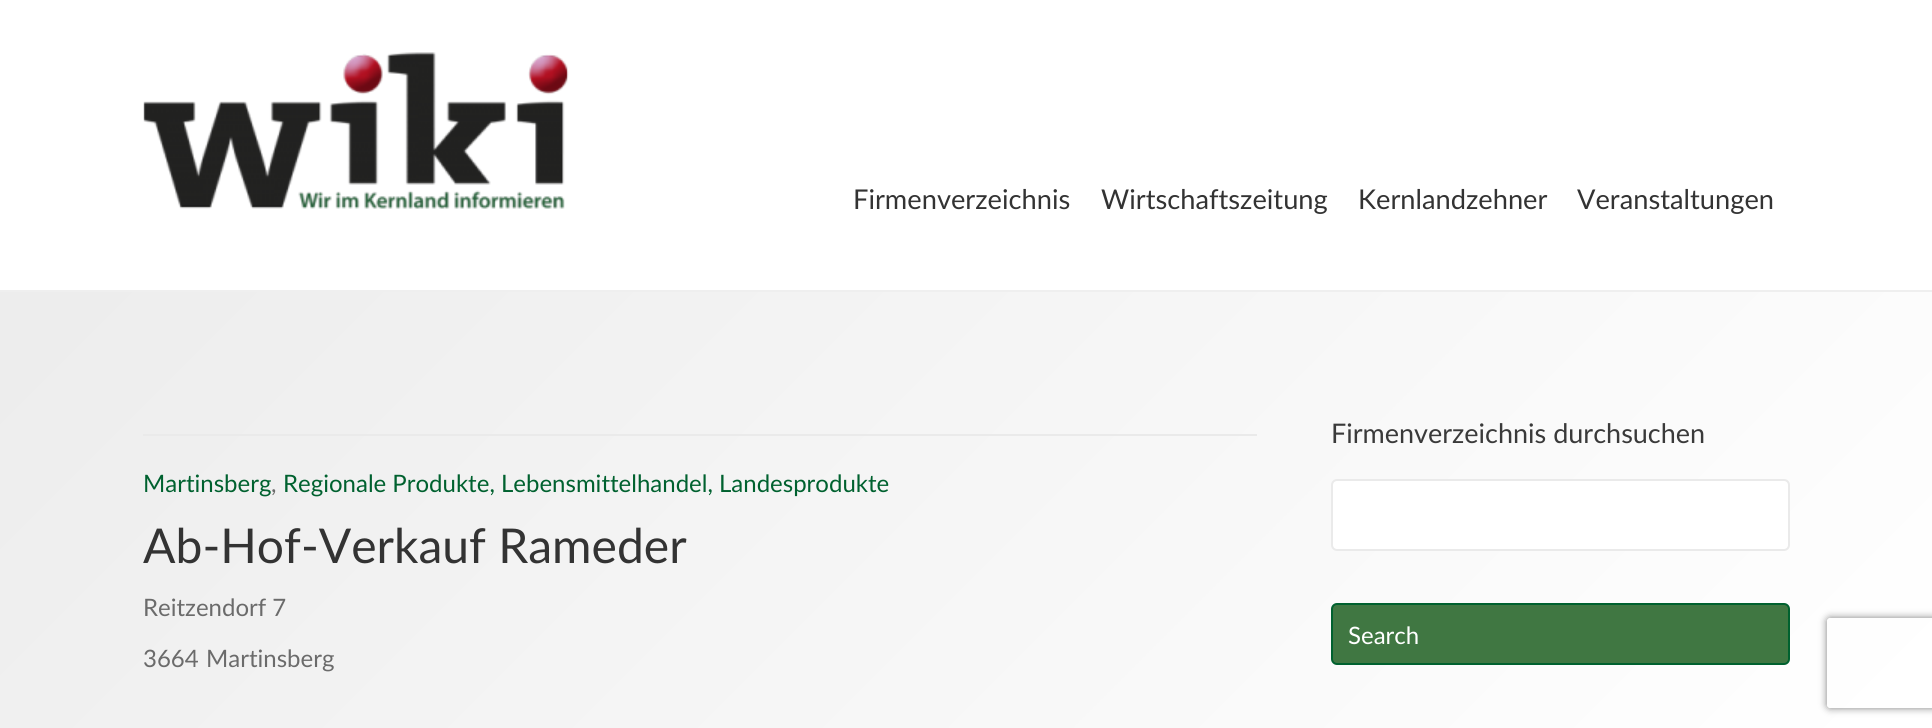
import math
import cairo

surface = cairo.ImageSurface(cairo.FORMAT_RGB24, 1932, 728)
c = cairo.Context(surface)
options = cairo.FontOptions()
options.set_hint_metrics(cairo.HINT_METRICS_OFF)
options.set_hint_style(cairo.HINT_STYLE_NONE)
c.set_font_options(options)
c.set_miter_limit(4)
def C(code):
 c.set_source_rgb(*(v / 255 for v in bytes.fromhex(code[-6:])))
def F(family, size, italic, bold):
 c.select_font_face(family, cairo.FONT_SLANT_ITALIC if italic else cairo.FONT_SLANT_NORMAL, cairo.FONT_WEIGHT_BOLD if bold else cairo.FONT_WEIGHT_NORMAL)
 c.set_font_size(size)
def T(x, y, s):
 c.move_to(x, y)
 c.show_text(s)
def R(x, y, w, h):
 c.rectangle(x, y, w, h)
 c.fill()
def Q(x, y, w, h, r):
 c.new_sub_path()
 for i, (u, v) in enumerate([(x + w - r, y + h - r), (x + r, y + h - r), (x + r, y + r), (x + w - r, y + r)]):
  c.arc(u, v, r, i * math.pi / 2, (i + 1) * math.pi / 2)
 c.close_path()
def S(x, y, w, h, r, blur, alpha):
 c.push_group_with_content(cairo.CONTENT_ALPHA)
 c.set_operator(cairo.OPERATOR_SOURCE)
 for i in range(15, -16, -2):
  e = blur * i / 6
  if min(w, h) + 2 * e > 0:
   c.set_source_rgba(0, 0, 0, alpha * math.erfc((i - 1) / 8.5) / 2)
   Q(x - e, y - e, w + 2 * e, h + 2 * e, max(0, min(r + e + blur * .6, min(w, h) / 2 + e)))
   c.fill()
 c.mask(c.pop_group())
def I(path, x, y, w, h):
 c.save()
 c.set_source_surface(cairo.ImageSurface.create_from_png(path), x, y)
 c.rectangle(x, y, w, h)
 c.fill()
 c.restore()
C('ffffff')
c.paint()
C('efefef')
R(0,290,1932,2)
I('1.png',143,52,426,157)
F('Lato',27.25,0,0)
C('333333')
T(853,209,'Firmenverzeichnis')
T(1101,209,'Wirtschaftszeitung')
T(1358,209,'Kernlandzehner')
T(1577,209,'Veranstaltungen')
gradient = cairo.LinearGradient(-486,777,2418,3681)
gradient.add_color_stop_rgba(.01,0.929,0.929,0.929,1)
gradient.add_color_stop_rgba(.4,1,1,1,1)
gradient.add_color_stop_rgba(1,0.937,0.937,0.937,1)
c.set_source(gradient)
R(0,292,1932,436)
C('eaeaea')
R(143,434,1114,2)
F('Lato',24,0,0)
C('00612f')
T(143,492,'Martinsberg')
C('6b6b6b')
T(271,492,',')
C('00612f')
T(283,492,'Regionale Produkte, Lebensmittelhandel, Landesprodukte')
F('Lato',48,0,0)
C('333333')
T(143,563,'Ab-Hof-Verkauf Rameder')
F('Lato',24,0,0)
C('6b6b6b')
T(143,616,'Reitzendorf 7')
T(143,667,'3664')
T(206,667,'Martinsberg')
F('Lato',27,0,0)
C('3a3a3a')
T(1331,443,'Firmenverzeichnis durchsuchen')
C('ffffff')
Q(1332,480,457,70,5)
c.fill_preserve()
C('eaeaea')
c.stroke()
C('407742')
Q(1332,604,457,60,5)
c.fill_preserve()
C('00612f')
c.stroke()
F('Lato',24,0,0)
C('ffffff')
T(1348,644,'Search')
c.save()
c.set_fill_rule(cairo.FILL_RULE_EVEN_ODD)
c.new_path()
c.move_to(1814,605)
c.line_to(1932,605)
c.line_to(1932,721)
c.line_to(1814,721)
c.close_path()
c.move_to(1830,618)
c.line_to(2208,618)
c.curve_to(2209.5,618,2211,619.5,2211,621)
c.line_to(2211,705)
c.curve_to(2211,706.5,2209.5,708,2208,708)
c.line_to(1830,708)
c.curve_to(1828.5,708,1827,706.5,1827,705)
c.line_to(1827,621)
c.curve_to(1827,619.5,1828.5,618,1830,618)
c.close_path()
c.clip()
C('808080')
S(1827,618,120,90,3,4,1)
c.restore()
surface.write_to_png('o.png')
